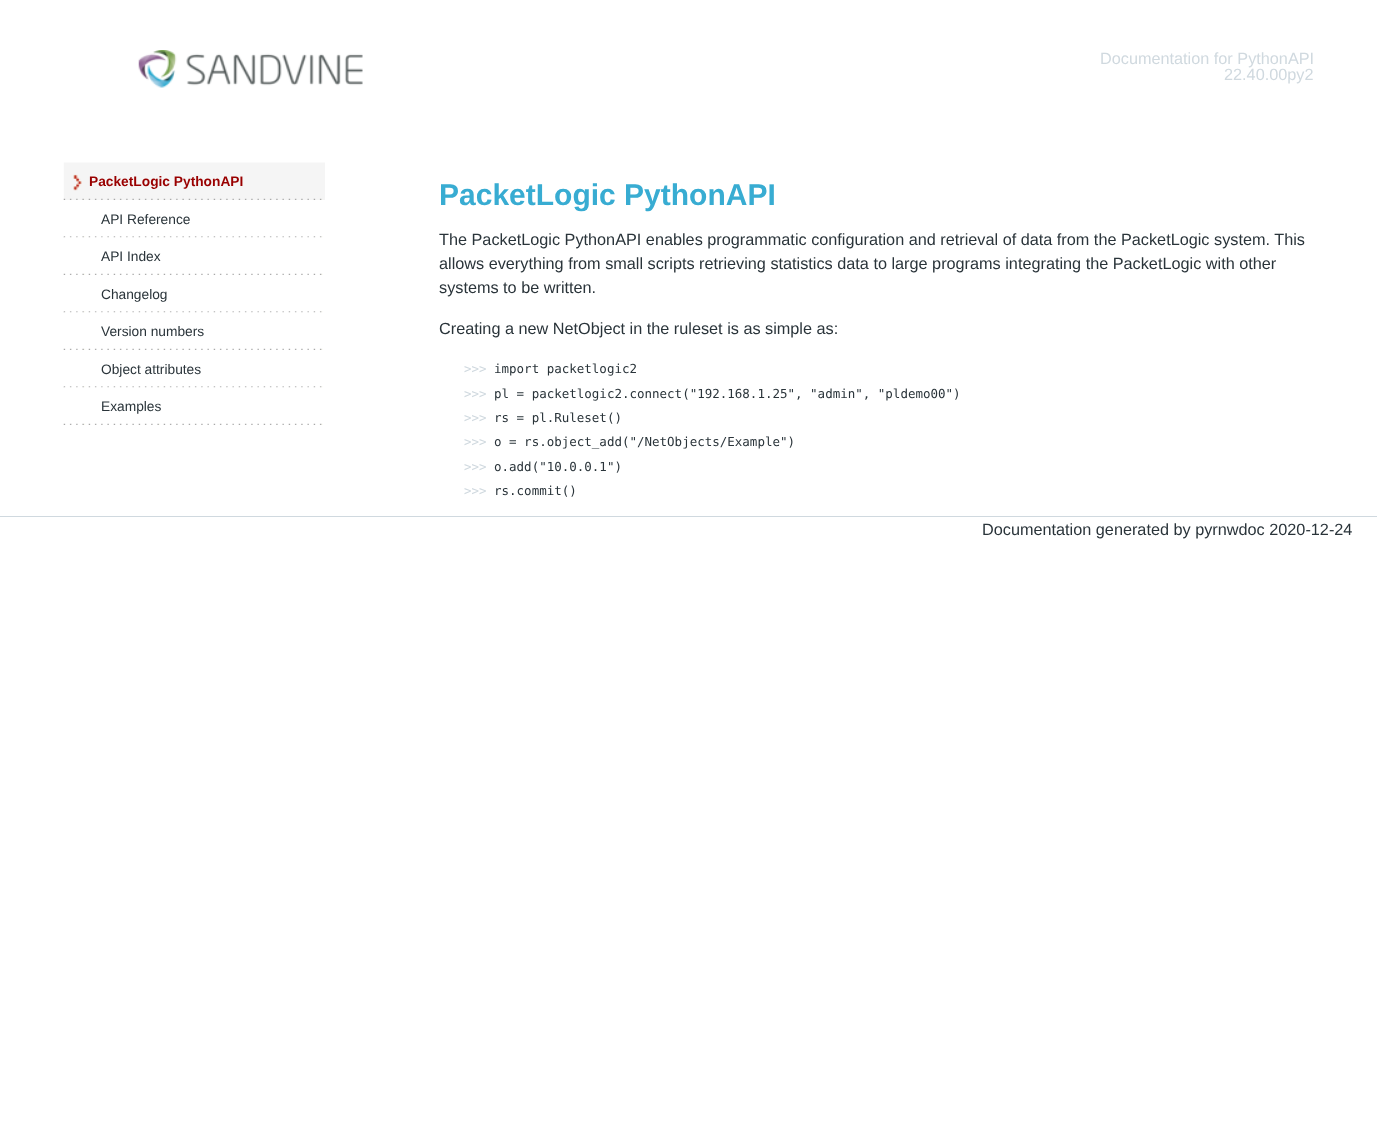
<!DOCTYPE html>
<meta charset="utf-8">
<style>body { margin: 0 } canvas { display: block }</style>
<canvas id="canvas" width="1377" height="1123"></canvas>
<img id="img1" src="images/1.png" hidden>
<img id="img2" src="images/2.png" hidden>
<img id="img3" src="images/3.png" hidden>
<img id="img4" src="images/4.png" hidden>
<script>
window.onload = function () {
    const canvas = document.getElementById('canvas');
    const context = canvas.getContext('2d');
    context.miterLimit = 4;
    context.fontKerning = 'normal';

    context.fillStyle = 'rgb(255, 255, 255)';
    context.fillRect(0, 0, 1377, 1123);
    context.drawImage(document.getElementById('img1'), 138, 50, 225, 38);
    context.drawImage(document.getElementById('img2'), 63, 162, 262, 38);
    context.drawImage(document.getElementById('img3'), 63, 236, 260, 2);
    context.drawImage(document.getElementById('img4'), 63, 237, 260, 38);
    context.drawImage(document.getElementById('img3'), 63, 311, 260, 2);
    context.drawImage(document.getElementById('img4'), 63, 312, 260, 38);
    context.drawImage(document.getElementById('img3'), 63, 386, 260, 2);
    context.drawImage(document.getElementById('img4'), 63, 387, 260, 38);
    context.fillStyle = 'rgb(208, 217, 223)';
    context.fillRect(0, 516, 1377, 1);
    context.font = '16.25px Liberation Sans';
    context.fillText('Documentation for PythonAPI', 1100, 64);
    context.fillText('22.40.00py2', 1224, 80);
    context.font = 'bold 13.75px Liberation Sans';
    context.fillStyle = 'rgb(153, 0, 0)';
    context.fillText('PacketLogic PythonAPI', 89, 186);
    context.font = '13.75px Liberation Sans';
    context.fillStyle = 'rgb(42, 52, 58)';
    context.fillText('API Reference', 101, 224);
    context.fillText('API Index', 101, 261);
    context.fillText('Changelog', 101, 299);
    context.fillText('Version numbers', 101, 336);
    context.fillText('Object attributes', 101, 374);
    context.fillText('Examples', 101, 411);
    context.font = 'bold 30px Liberation Sans';
    context.fillStyle = 'rgb(56, 172, 210)';
    context.fillText('PacketLogic PythonAPI', 439, 205);
    context.font = '16.25px Liberation Sans';
    context.fillStyle = 'rgb(42, 52, 58)';
    context.fillText('The PacketLogic PythonAPI enables programmatic configuration and retrieval of data from the PacketLogic system. This', 439, 245);
    context.fillText('allows everything from small scripts retrieving statistics data to large programs integrating the PacketLogic with other', 439, 269);
    context.fillText('systems to be written.', 439, 293);
    context.fillText('Creating a new NetObject in the ruleset is as simple as:', 439, 334);
    context.font = '12.5px DejaVu Sans Mono';
    context.fillStyle = 'rgb(208, 217, 223)';
    context.fillText('>>>', 464, 373);
    context.fillStyle = 'rgb(42, 52, 58)';
    context.fillText('import packetlogic2', 494, 373);
    context.fillStyle = 'rgb(208, 217, 223)';
    context.fillText('>>>', 464, 398);
    context.fillStyle = 'rgb(42, 52, 58)';
    context.fillText('pl = packetlogic2.connect("192.168.1.25", "admin", "pldemo00")', 494, 398);
    context.fillStyle = 'rgb(208, 217, 223)';
    context.fillText('>>>', 464, 422);
    context.fillStyle = 'rgb(42, 52, 58)';
    context.fillText('rs = pl.Ruleset()', 494, 422);
    context.fillStyle = 'rgb(208, 217, 223)';
    context.fillText('>>>', 464, 446);
    context.fillStyle = 'rgb(42, 52, 58)';
    context.fillText('o = rs.object_add("/NetObjects/Example")', 494, 446);
    context.fillStyle = 'rgb(208, 217, 223)';
    context.fillText('>>>', 464, 471);
    context.fillStyle = 'rgb(42, 52, 58)';
    context.fillText('o.add("10.0.0.1")', 494, 471);
    context.fillStyle = 'rgb(208, 217, 223)';
    context.fillText('>>>', 464, 495);
    context.fillStyle = 'rgb(42, 52, 58)';
    context.fillText('rs.commit()', 494, 495);
    context.font = '16.25px Liberation Sans';
    context.fillText('Documentation generated by pyrnwdoc 2020-12-24', 982, 535);
};
</script>
